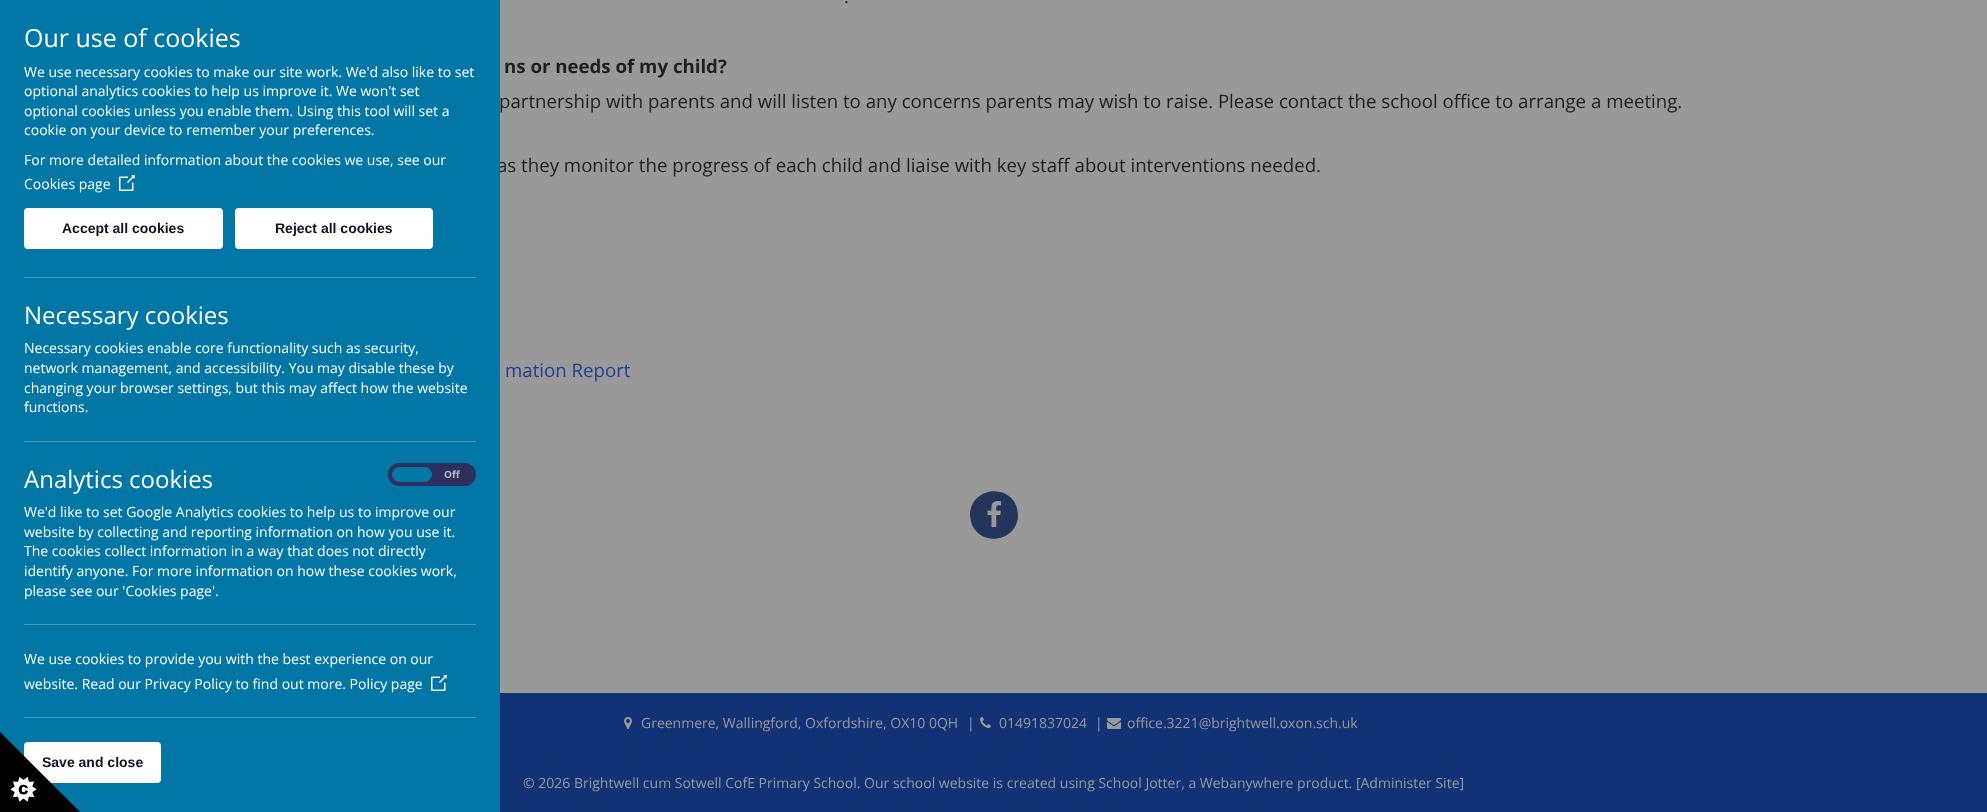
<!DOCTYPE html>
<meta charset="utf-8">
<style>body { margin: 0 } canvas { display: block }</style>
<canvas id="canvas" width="1987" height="812"></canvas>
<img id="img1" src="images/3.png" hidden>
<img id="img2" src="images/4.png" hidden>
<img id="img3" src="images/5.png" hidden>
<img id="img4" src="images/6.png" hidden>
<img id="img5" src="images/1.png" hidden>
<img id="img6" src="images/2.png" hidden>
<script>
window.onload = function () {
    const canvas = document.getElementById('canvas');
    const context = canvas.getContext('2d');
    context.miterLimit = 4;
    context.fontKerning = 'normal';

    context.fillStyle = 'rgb(153, 153, 153)';
    context.fillRect(0, 0, 1987, 812);
    context.fillStyle = 'rgb(35, 53, 91)';
    context.beginPath();
    context.moveTo(1015, 503);
    context.bezierCurveTo(1017, 507, 1018, 512, 1018, 517);
    context.bezierCurveTo(1016, 540, 985, 547, 973, 527);
    context.bezierCurveTo(971, 523, 970, 518, 970, 513);
    context.bezierCurveTo(972, 490, 1003, 483, 1015, 503);
    context.closePath();
    context.fill();
    context.drawImage(document.getElementById('img1'), 987, 501, 14, 26);
    context.fillStyle = 'rgb(17, 50, 117)';
    context.fillRect(500, 693, 1487, 119);
    context.drawImage(document.getElementById('img2'), 624, 717, 8, 12);
    context.drawImage(document.getElementById('img3'), 980, 717, 11, 11);
    context.drawImage(document.getElementById('img4'), 1107, 718, 14, 11);
    context.font = '18.67px Open Sans';
    context.fillStyle = 'rgb(31, 31, 31)';
    context.fillText('.', 844, 3);
    context.font = 'bold 18.67px Open Sans';
    context.fillText('ns or needs of my child?', 504, 73);
    context.font = '18.67px Open Sans';
    context.fillText('partnership with parents and will listen to any concerns parents may wish to raise. Please contact the school office to arrange a meeting.', 499, 108);
    context.fillText('as they monitor the progress of each child and liaise with key staff about interventions needed.', 497, 172);
    context.fillStyle = 'rgb(31, 61, 153)';
    context.fillText('mation Report', 505, 377);
    context.fillStyle = 'rgb(2, 118, 165)';
    context.fillRect(0, 0, 500, 812);
    context.font = '25px Open Sans';
    context.fillStyle = 'rgb(255, 255, 255)';
    context.fillText('Our use of cookies', 24, 47);
    context.font = '14px Open Sans';
    context.fillText('We use necessary cookies to make our site work. We\'d also like to set', 24, 77);
    context.fillText('optional analytics cookies to help us improve it. We won\'t set', 24, 96);
    context.fillText('optional cookies unless you enable them. Using this tool will set a', 24, 116);
    context.fillText('cookie on your device to remember your preferences.', 24, 135);
    context.fillText('For more detailed information about the cookies we use, see our', 24, 165);
    context.fillText('Cookies page', 24, 189);
    context.drawImage(document.getElementById('img5'), 119, 175, 16, 16);
    context.beginPath();
    context.roundRect(25, 209, 197, 39, 3);
    context.fill();
    context.strokeStyle = 'rgb(255, 255, 255)';
    context.lineWidth = 2;
    context.stroke();
    context.font = 'bold 14px Liberation Sans';
    context.fillStyle = 'rgb(17, 17, 37)';
    context.fillText('Accept all cookies', 62, 233);
    context.fillStyle = 'rgb(255, 255, 255)';
    context.beginPath();
    context.roundRect(236, 209, 196, 39, 3);
    context.fill();
    context.stroke();
    context.fillStyle = 'rgb(17, 17, 37)';
    context.fillText('Reject all cookies', 275, 233);
    context.fillStyle = 'rgb(65, 152, 188)';
    context.fillRect(24, 277, 452, 1);
    context.font = '24px Open Sans';
    context.fillStyle = 'rgb(255, 255, 255)';
    context.fillText('Necessary cookies', 24, 324);
    context.font = '14px Open Sans';
    context.fillText('Necessary cookies enable core functionality such as security,', 24, 353);
    context.fillText('network management, and accessibility. You may disable these by', 24, 373);
    context.fillText('changing your browser settings, but this may affect how the website', 24, 393);
    context.fillText('functions.', 24, 412);
    context.fillStyle = 'rgb(65, 152, 188)';
    context.fillRect(24, 441, 452, 1);
    context.font = '24px Open Sans';
    context.fillStyle = 'rgb(255, 255, 255)';
    context.fillText('Analytics cookies', 24, 488);
    context.fillStyle = 'rgb(47, 47, 95)';
    context.beginPath();
    context.roundRect(390, 465, 84, 19, 9.5);
    context.fill();
    context.strokeStyle = 'rgb(47, 47, 95)';
    context.lineWidth = 4;
    context.stroke();
    context.fillStyle = 'rgb(2, 118, 165)';
    context.beginPath();
    context.roundRect(392, 467, 40, 15, 7.5);
    context.fill();
    context.font = 'bold 10px Open Sans';
    context.fillStyle = 'rgb(182, 182, 199)';
    context.fillText('Off', 444, 478);
    context.font = '14px Open Sans';
    context.fillStyle = 'rgb(255, 255, 255)';
    context.fillText('We\'d like to set Google Analytics cookies to help us to improve our', 24, 517);
    context.fillText('website by collecting and reporting information on how you use it.', 24, 537);
    context.fillText('The cookies collect information in a way that does not directly', 24, 556);
    context.fillText('identify anyone. For more information on how these cookies work,', 24, 576);
    context.fillText('please see our \'Cookies page\'.', 24, 596);
    context.fillStyle = 'rgb(65, 152, 188)';
    context.fillRect(24, 624, 452, 1);
    context.fillStyle = 'rgb(255, 255, 255)';
    context.fillText('We use cookies to provide you with the best experience on our', 24, 664);
    context.fillText('website. Read our Privacy Policy to find out more. Policy page', 24, 689);
    context.drawImage(document.getElementById('img5'), 431, 675, 16, 16);
    context.fillStyle = 'rgb(65, 152, 188)';
    context.fillRect(24, 717, 452, 1);
    context.fillStyle = 'rgb(255, 255, 255)';
    context.beginPath();
    context.roundRect(25, 743, 135, 39, 3);
    context.fill();
    context.strokeStyle = 'rgb(255, 255, 255)';
    context.lineWidth = 2;
    context.stroke();
    context.font = 'bold 14px Liberation Sans';
    context.fillStyle = 'rgb(17, 17, 37)';
    context.fillText('Save and close', 42, 767);
    context.drawImage(document.getElementById('img6'), 0, 732, 80, 80);
    context.font = '14px Open Sans';
    context.fillStyle = 'rgb(153, 153, 153)';
    context.fillText('© 2026 Brightwell cum Sotwell CofE Primary School. Our school website is created using School Jotter, a Webanywhere product. [Administer Site]', 523, 788);
    context.fillText('Greenmere, Wallingford, Oxfordshire, OX10 0QH', 641, 728);
    context.fillText('|', 967, 728);
    context.fillText('01491837024', 999, 728);
    context.fillText('|', 1095, 728);
    context.fillText('office.3221@brightwell.oxon.sch.uk', 1127, 728);
};
</script>
